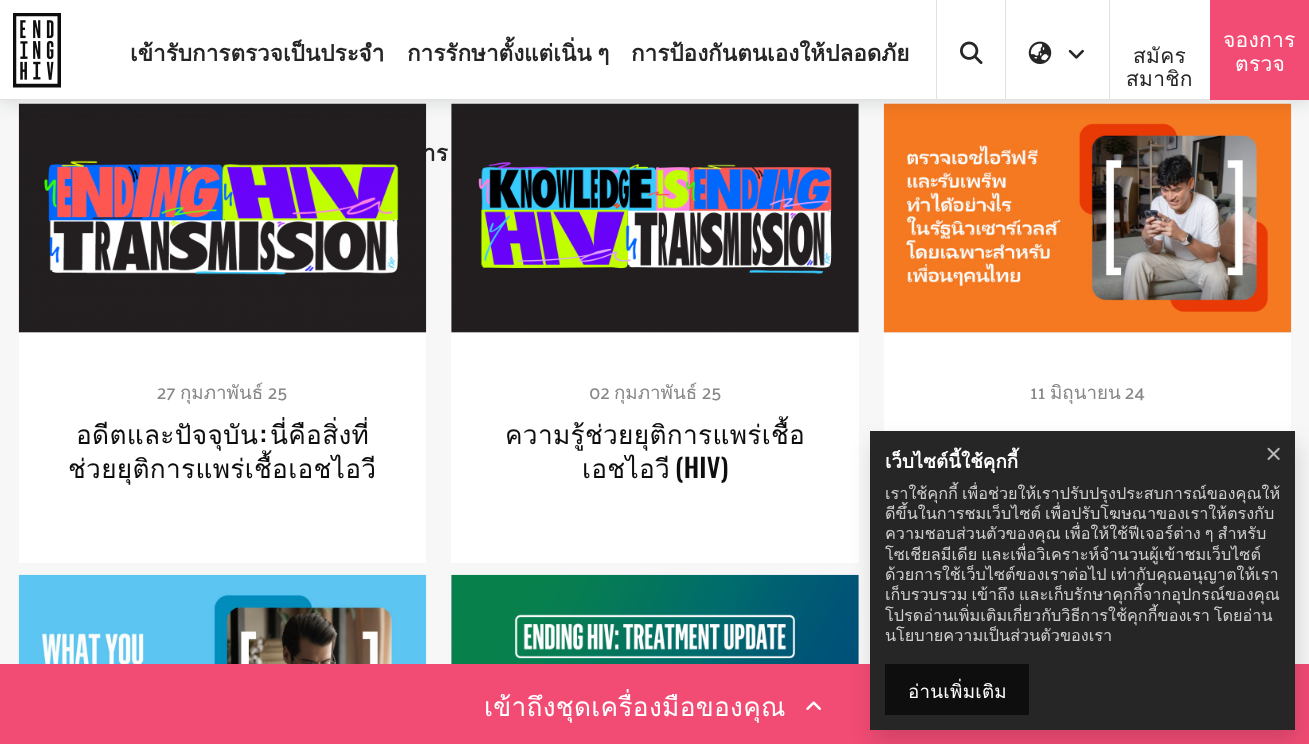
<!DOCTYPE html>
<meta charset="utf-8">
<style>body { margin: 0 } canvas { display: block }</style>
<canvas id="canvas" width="1309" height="744"></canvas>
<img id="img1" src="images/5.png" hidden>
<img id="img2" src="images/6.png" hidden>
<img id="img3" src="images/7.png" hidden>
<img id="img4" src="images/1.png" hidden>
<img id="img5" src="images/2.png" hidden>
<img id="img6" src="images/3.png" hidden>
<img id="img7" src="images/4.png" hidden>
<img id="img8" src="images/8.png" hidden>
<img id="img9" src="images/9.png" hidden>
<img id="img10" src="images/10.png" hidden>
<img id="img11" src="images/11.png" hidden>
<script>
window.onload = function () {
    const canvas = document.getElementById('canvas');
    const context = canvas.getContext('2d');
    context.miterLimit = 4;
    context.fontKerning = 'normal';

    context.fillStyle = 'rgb(247, 247, 247)';
    context.fillRect(0, 0, 1309, 744);
    context.fillStyle = 'rgb(236, 236, 236)';
    context.fillRect(19, 332, 407, 1);
    context.drawImage(document.getElementById('img1'), 18, 103, 409, 230);
    context.fillRect(451, 104, 408, 229);
    context.drawImage(document.getElementById('img2'), 451, 103, 408, 230);
    context.fillRect(884, 332, 407, 1);
    context.drawImage(document.getElementById('img3'), 883, 103, 409, 230);
    context.fillStyle = 'rgba(5, 28, 40, 0.1)';
    context.filter = 'blur(7.5px)';
    context.beginPath();
    context.rect(0, 5, 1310, 100);
    context.fill();
    context.filter = 'none';
    context.fillStyle = 'rgb(255, 255, 255)';
    context.fillRect(0, 0, 1210, 99);
    context.fillStyle = 'rgb(225, 225, 225)';
    context.fillRect(0, 99, 1210, 1);
    context.drawImage(document.getElementById('img4'), 13, 13, 48, 75);
    context.fillRect(936, 0, 1, 100);
    context.drawImage(document.getElementById('img5'), 960, 41, 23, 23);
    context.fillRect(1005, 0, 1, 100);
    context.drawImage(document.getElementById('img6'), 1028, 41, 24, 23);
    context.drawImage(document.getElementById('img7'), 1068, 49, 16, 10);
    context.fillRect(1109, 0, 1, 100);
    context.fillStyle = 'rgb(242, 75, 116)';
    context.fillRect(1210, 0, 99, 100);
    context.fillStyle = 'rgb(255, 255, 255)';
    context.fillRect(19, 333, 407, 230);
    context.fillRect(451, 333, 408, 230);
    context.fillRect(884, 333, 407, 98);
    context.drawImage(document.getElementById('img8'), 18, 574, 409, 90);
    context.fillStyle = 'rgb(236, 236, 236)';
    context.fillRect(451, 575, 408, 89);
    context.drawImage(document.getElementById('img9'), 451, 574, 408, 90);
    context.fillStyle = 'rgb(242, 75, 116)';
    context.fillRect(0, 664, 1309, 80);
    context.fillStyle = 'rgba(15, 14, 14, 0.15)';
    context.filter = 'blur(11px)';
    context.beginPath();
    context.rect(873, 443, 425, 298);
    context.fill();
    context.filter = 'none';
    context.fillStyle = 'rgb(39, 38, 38)';
    context.fillRect(870, 431, 425, 299);
    context.drawImage(document.getElementById('img10'), 1267, 447, 13, 13);
    context.fillStyle = 'rgb(15, 14, 14)';
    context.fillRect(885, 664, 144, 51);
    context.drawImage(document.getElementById('img11'), 806, 701, 15, 9);
    context.font = 'bold 22.5px Loma';
    context.fillStyle = 'rgb(39, 38, 38)';
    context.fillText('เข้ารับการตรวจเป็นประจำ', 130, 61);
    context.wordSpacing = '-2px';
    context.fillText('การรักษาตั้งแต่เนิ่น ๆ', 407, 61);
    context.wordSpacing = '0px';
    context.fillText('การป้องกันตนเองให้ปลอดภัย', 631, 61);
    context.fillText('าร', 423, 161);
    context.letterSpacing = '0.25px';
    context.font = '21px Loma';
    context.fillText('สมัคร', 1133, 63);
    context.fillText('สมาชิก', 1126, 86);
    context.fillStyle = 'rgb(255, 255, 255)';
    context.fillText('จองการ', 1223, 47);
    context.fillText('ตรวจ', 1235, 71);
    context.letterSpacing = '0px';
    context.font = '500 18.75px Palanquin';
    context.fillStyle = 'rgb(135, 135, 135)';
    context.fillText('27', 157, 399);
    context.font = '18.75px Loma';
    context.fillText('กุมภาพันธ์', 180, 399);
    context.font = '500 18.75px Palanquin';
    context.fillText('25', 268, 399);
    context.letterSpacing = '0.3px';
    context.font = '26.25px Loma';
    context.fillStyle = 'rgb(15, 14, 14)';
    context.fillText('อดีตและปัจจุบัน', 76, 444);
    context.font = '500 26.25px Oswald';
    context.fillText(':', 260, 444);
    context.font = '26.25px Loma';
    context.fillText('นี่คือสิ่งที่', 270, 444);
    context.fillText('ช่วยยุติการแพร่เชื้อเอชไอวี', 68, 478);
    context.letterSpacing = '0px';
    context.font = '500 18.75px Palanquin';
    context.fillStyle = 'rgb(135, 135, 135)';
    context.fillText('02', 589, 399);
    context.font = '18.75px Loma';
    context.fillText('กุมภาพันธ์', 614, 399);
    context.font = '500 18.75px Palanquin';
    context.fillText('25', 702, 399);
    context.letterSpacing = '0.3px';
    context.font = '26.25px Loma';
    context.fillStyle = 'rgb(15, 14, 14)';
    context.fillText('ความรู้ช่วยยุติการแพร่เชื้อ', 505, 444);
    context.fillText('เอชไอวี', 582, 478);
    context.font = '500 26.25px Oswald';
    context.fillText('(HIV)', 675, 478);
    context.letterSpacing = '0px';
    context.font = '500 18.75px Palanquin';
    context.fillStyle = 'rgb(135, 135, 135)';
    context.fillText('11', 1030, 399);
    context.font = '18.75px Loma';
    context.fillText('มิถุนายน', 1050, 399);
    context.font = '500 18.75px Palanquin';
    context.fillText('24', 1125, 399);
    context.font = 'bold 18.75px Loma';
    context.fillStyle = 'rgb(255, 255, 255)';
    context.fillText('เว็บไซต์นี้ใช้คุกกี้', 885, 468);
    context.wordSpacing = '-1.5px';
    context.font = '16.25px Loma';
    context.fillStyle = 'rgb(207, 207, 207)';
    context.fillText('เราใช้คุกกี้ เพื่อช่วยให้เราปรับปรุงประสบการณ์ของคุณให้', 885, 499);
    context.fillText('ดีขึ้นในการชมเว็บไซต์ เพื่อปรับโฆษณาของเราให้ตรงกับ', 885, 519);
    context.fillText('ความชอบส่วนตัวของคุณ เพื่อให้ใช้ฟีเจอร์ต่าง ๆ สำหรับ', 885, 539);
    context.fillText('โซเชียลมีเดีย และเพื่อวิเคราะห์จำนวนผู้เข้าชมเว็บไซต์', 885, 560);
    context.fillText('ด้วยการใช้เว็บไซต์ของเราต่อไป เท่ากับคุณอนุญาตให้เรา', 885, 580);
    context.fillText('เก็บรวบรวม เข้าถึง และเก็บรักษาคุกกี้จากอุปกรณ์ของคุณ', 885, 600);
    context.fillText('โปรดอ่านเพิ่มเติมเกี่ยวกับวิธีการใช้คุกกี้ของเรา โดยอ่าน', 885, 621);
    context.wordSpacing = '0px';
    context.fillText('นโยบายความเป็นส่วนตัวของเรา', 885, 641);
    context.letterSpacing = '0.25px';
    context.font = '18.75px Loma';
    context.fillStyle = 'rgb(255, 255, 255)';
    context.fillText('อ่านเพิ่มเติม', 908, 698);
    context.letterSpacing = '0.3px';
    context.font = '26.25px Loma';
    context.fillText('เข้าถึงชุดเครื่องมือของคุณ', 484, 716);
};
</script>
